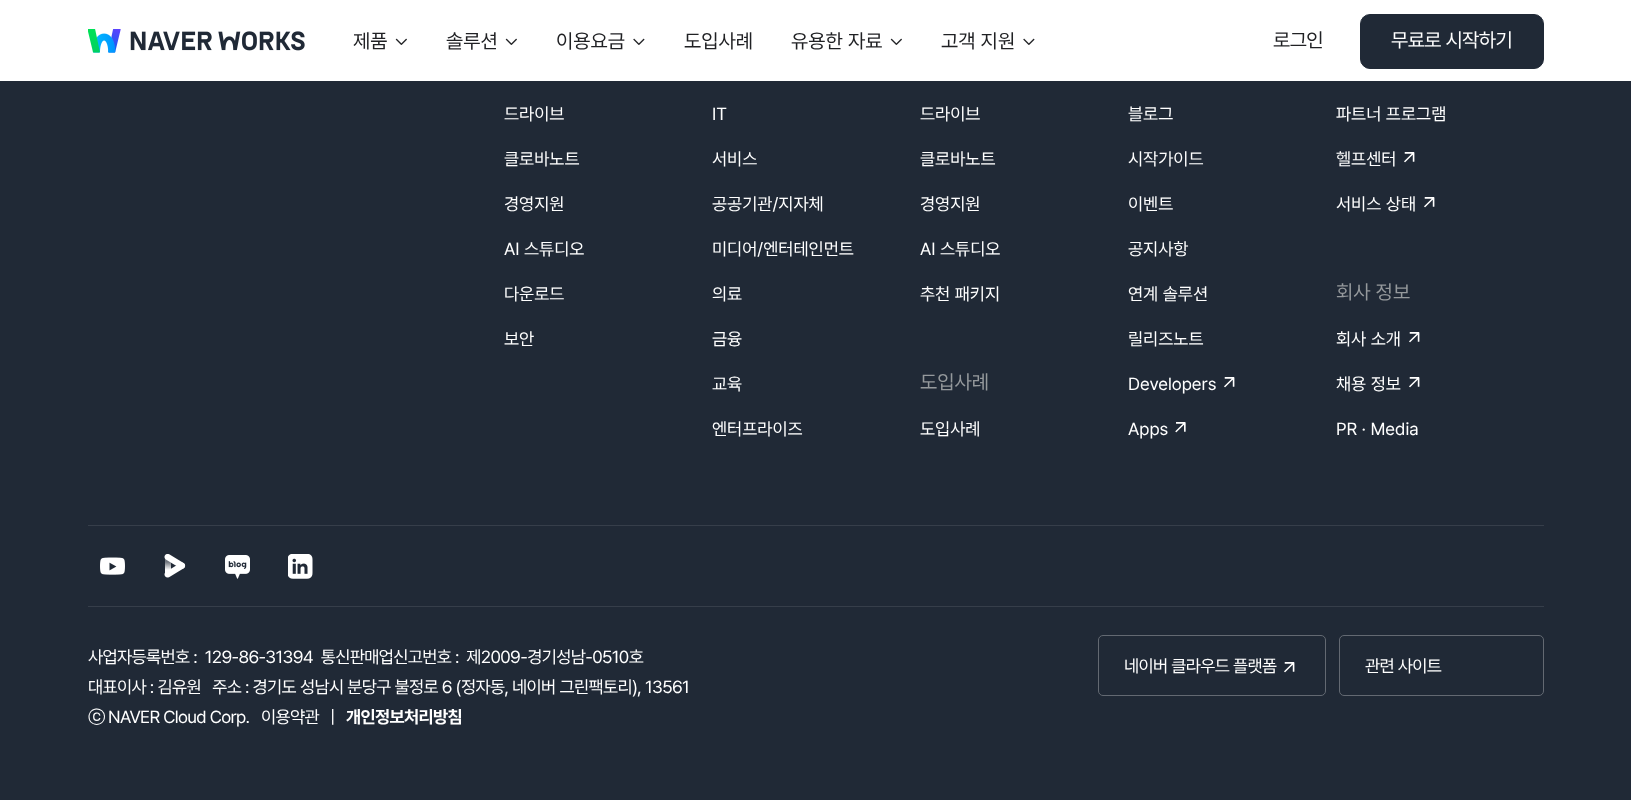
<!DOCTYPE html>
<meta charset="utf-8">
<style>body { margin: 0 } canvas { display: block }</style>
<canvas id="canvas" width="1650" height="800"></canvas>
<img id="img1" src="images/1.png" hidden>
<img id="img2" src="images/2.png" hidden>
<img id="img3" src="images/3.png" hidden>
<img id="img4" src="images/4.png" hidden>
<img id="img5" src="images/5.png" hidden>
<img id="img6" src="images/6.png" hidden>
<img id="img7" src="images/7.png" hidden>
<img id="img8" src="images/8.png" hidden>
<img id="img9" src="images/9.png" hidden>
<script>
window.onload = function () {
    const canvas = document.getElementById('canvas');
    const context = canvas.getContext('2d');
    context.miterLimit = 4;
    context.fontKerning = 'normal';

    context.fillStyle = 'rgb(255, 255, 255)';
    context.fillRect(0, 0, 1650, 800);
    context.drawImage(document.getElementById('img1'), 88, 29, 217, 24);
    context.drawImage(document.getElementById('img2'), 395, 38, 12, 7);
    context.drawImage(document.getElementById('img2'), 505, 38, 12, 7);
    context.drawImage(document.getElementById('img3'), 633, 38, 12, 7);
    context.drawImage(document.getElementById('img2'), 890, 38, 12, 7);
    context.drawImage(document.getElementById('img3'), 1023, 38, 12, 7);
    context.fillStyle = 'rgb(32, 41, 54)';
    context.beginPath();
    context.roundRect(1360.5, 14.5, 183, 54, 9.5);
    context.fill();
    context.strokeStyle = 'rgb(32, 41, 54)';
    context.stroke();
    context.fillRect(0, 81, 1631, 719);
    context.drawImage(document.getElementById('img4'), 1224, 377, 11, 11);
    context.drawImage(document.getElementById('img5'), 1175, 422, 11, 11);
    context.drawImage(document.getElementById('img4'), 1404, 152, 11, 11);
    context.drawImage(document.getElementById('img4'), 1424, 197, 11, 11);
    context.drawImage(document.getElementById('img4'), 1409, 332, 11, 11);
    context.drawImage(document.getElementById('img4'), 1409, 377, 11, 11);
    context.fillStyle = 'rgb(54, 62, 74)';
    context.fillRect(88, 525, 1456, 1);
    context.drawImage(document.getElementById('img6'), 100, 557, 25, 18);
    context.drawImage(document.getElementById('img7'), 164, 554, 22, 24);
    context.drawImage(document.getElementById('img8'), 225, 555, 25, 24);
    context.drawImage(document.getElementById('img9'), 288, 554, 25, 25);
    context.fillRect(88, 606, 1456, 1);
    context.beginPath();
    context.roundRect(1098.5, 635.5, 227, 60, 4.5);
    context.strokeStyle = 'rgb(99, 105, 114)';
    context.stroke();
    context.drawImage(document.getElementById('img4'), 1284, 662, 11, 11);
    context.beginPath();
    context.roundRect(1339.5, 635.5, 204, 60, 4.5);
    context.stroke();
    context.font = '20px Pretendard';
    context.fillStyle = 'rgb(32, 33, 36)';
    context.fillText('제품', 353, 48);
    context.fillText('솔루션', 446, 48);
    context.fillText('이용요금', 556, 48);
    context.fillText('도입사례', 684, 48);
    context.fillText('유용한 자료', 791, 48);
    context.fillText('고객 지원', 941, 48);
    context.letterSpacing = '-0.62px';
    context.fillText('로그인', 1273, 47);
    context.fillStyle = 'rgb(255, 255, 255)';
    context.fillText('무료로 시작하기', 1391, 47);
    context.letterSpacing = '0px';
    context.font = '17.5px Pretendard';
    context.fillText('드라이브', 504, 120);
    context.fillText('클로바노트', 504, 165);
    context.fillText('경영지원', 504, 210);
    context.fillText('AI 스튜디오', 504, 255);
    context.fillText('다운로드', 504, 300);
    context.fillText('보안', 504, 345);
    context.fillText('IT', 712, 120);
    context.fillText('서비스', 712, 165);
    context.fillText('공공기관/지자체', 712, 210);
    context.fillText('미디어/엔터테인먼트', 712, 255);
    context.fillText('의료', 712, 300);
    context.fillText('금융', 712, 345);
    context.fillText('교육', 712, 390);
    context.fillText('엔터프라이즈', 712, 435);
    context.fillText('드라이브', 920, 120);
    context.fillText('클로바노트', 920, 165);
    context.fillText('경영지원', 920, 210);
    context.fillText('AI 스튜디오', 920, 255);
    context.fillText('추천 패키지', 920, 300);
    context.font = '20px Pretendard';
    context.fillStyle = 'rgb(149, 153, 156)';
    context.fillText('도입사례', 920, 389);
    context.font = '17.5px Pretendard';
    context.fillStyle = 'rgb(255, 255, 255)';
    context.fillText('도입사례', 920, 435);
    context.fillText('블로그', 1128, 120);
    context.fillText('시작가이드', 1128, 165);
    context.fillText('이벤트', 1128, 210);
    context.fillText('공지사항', 1128, 255);
    context.fillText('연계 솔루션', 1128, 300);
    context.fillText('릴리즈노트', 1128, 345);
    context.fillText('Developers', 1128, 390);
    context.fillText('Apps', 1128, 435);
    context.fillText('파트너 프로그램', 1336, 120);
    context.fillText('헬프센터', 1336, 165);
    context.fillText('서비스 상태', 1336, 210);
    context.font = '20px Pretendard';
    context.fillStyle = 'rgb(149, 153, 156)';
    context.fillText('회사 정보', 1336, 299);
    context.font = '17.5px Pretendard';
    context.fillStyle = 'rgb(255, 255, 255)';
    context.fillText('회사 소개', 1336, 345);
    context.fillText('채용 정보', 1336, 390);
    context.fillText('PR · Media', 1336, 435);
    context.letterSpacing = '-0.62px';
    context.fillText('사업자등록번호 :  129-86-31394  통신판매업신고번호 :  제2009-경기성남-0510호', 88, 663);
    context.fillText('대표이사 : 김유원   주소 : 경기도 성남시 분당구 불정로 6 (정자동, 네이버 그린팩토리), 13561', 88, 693);
    context.font = '500 17.5px WenQuanYi Zen Hei';
    context.fillText('ⓒ', 88, 723);
    context.font = '17.5px Pretendard';
    context.fillText('NAVER Cloud Corp.', 108, 723);
    context.fillText('이용약관', 261, 723);
    context.fillText('|', 330, 723);
    context.font = 'bold 17.5px Pretendard';
    context.fillText('개인정보처리방침', 346, 723);
    context.font = '17.5px Pretendard';
    context.fillText('네이버 클라우드 플랫폼', 1124, 672);
    context.fillText('관련 사이트', 1365, 672);
};
</script>
